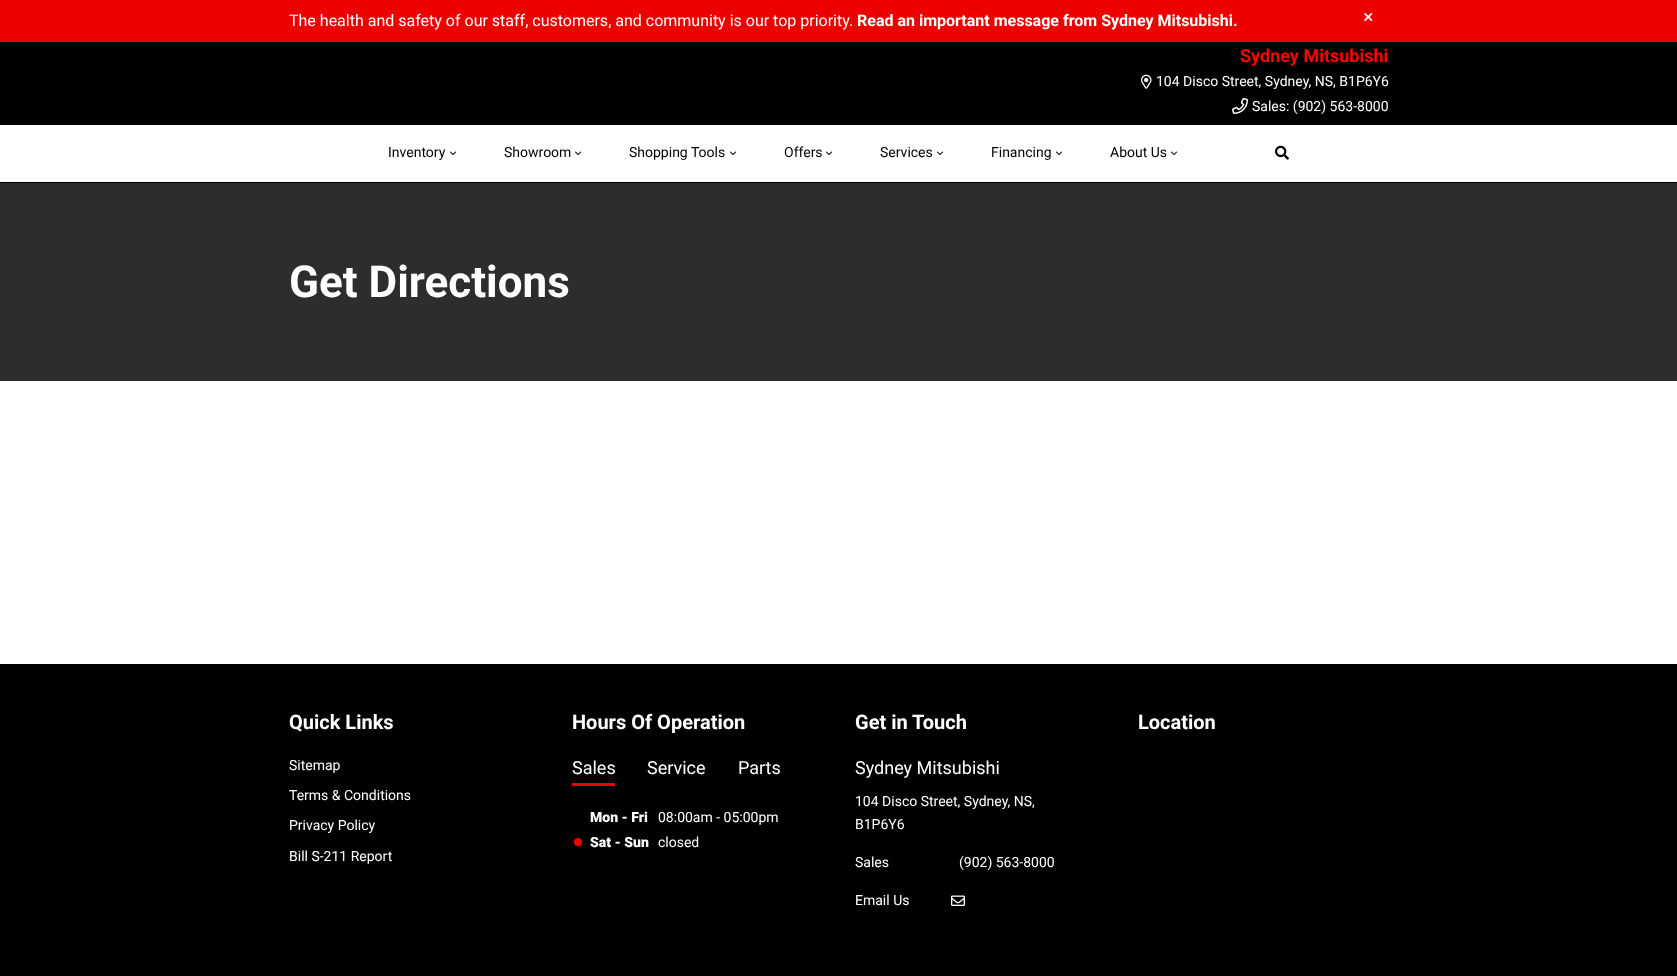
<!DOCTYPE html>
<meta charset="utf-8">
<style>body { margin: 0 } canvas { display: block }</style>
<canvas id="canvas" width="1677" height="976"></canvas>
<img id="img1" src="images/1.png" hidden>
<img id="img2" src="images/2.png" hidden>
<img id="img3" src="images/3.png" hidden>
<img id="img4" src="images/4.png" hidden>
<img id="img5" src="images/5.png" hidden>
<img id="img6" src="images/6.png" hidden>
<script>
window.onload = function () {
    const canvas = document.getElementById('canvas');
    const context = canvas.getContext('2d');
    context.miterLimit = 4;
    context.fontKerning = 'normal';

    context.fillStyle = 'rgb(255, 255, 255)';
    context.fillRect(0, 0, 1677, 976);
    context.fillStyle = 'rgb(237, 0, 0)';
    context.fillRect(0, 0, 1677, 42);
    context.drawImage(document.getElementById('img1'), 1364, 12, 9, 10);
    context.fillStyle = 'rgb(0, 0, 0)';
    context.fillRect(0, 42, 1677, 83);
    context.drawImage(document.getElementById('img2'), 1141, 74, 11, 15);
    context.drawImage(document.getElementById('img3'), 1232, 98, 16, 16);
    context.fillRect(0, 182, 1677, 1);
    context.drawImage(document.getElementById('img4'), 450, 151, 7, 5);
    context.drawImage(document.getElementById('img4'), 575, 151, 7, 5);
    context.drawImage(document.getElementById('img4'), 730, 151, 7, 5);
    context.drawImage(document.getElementById('img4'), 826, 151, 7, 5);
    context.drawImage(document.getElementById('img4'), 937, 151, 7, 5);
    context.drawImage(document.getElementById('img4'), 1056, 151, 7, 5);
    context.drawImage(document.getElementById('img4'), 1171, 151, 7, 5);
    context.drawImage(document.getElementById('img5'), 1275, 145, 14, 15);
    context.fillStyle = 'rgb(45, 45, 45)';
    context.fillRect(0, 183, 1677, 198);
    context.fillStyle = 'rgb(0, 0, 0)';
    context.fillRect(0, 664, 1677, 312);
    context.fillStyle = 'rgb(237, 0, 0)';
    context.fillRect(572, 783, 43, 3);
    context.beginPath();
    context.arc(578, 842, 4, 0, 2 * Math.PI);
    context.fill();
    context.drawImage(document.getElementById('img6'), 951, 895, 14, 11);
    context.font = '16px Roboto';
    context.fillStyle = 'rgb(255, 255, 255)';
    context.fillText('The health and safety of our staff, customers, and community is our top priority.', 289, 26);
    context.font = 'bold 16px Roboto';
    context.fillText('Read an important message from Sydney Mitsubishi.', 857, 26);
    context.font = 'bold 18px Roboto';
    context.fillStyle = 'rgb(255, 0, 0)';
    context.fillText('Sydney Mitsubishi', 1240, 62);
    context.font = '14px Roboto';
    context.fillStyle = 'rgb(255, 255, 255)';
    context.fillText('104 Disco Street, Sydney, NS, B1P6Y6', 1156, 86);
    context.fillText('Sales: (902) 563-8000', 1252, 111);
    context.fillStyle = 'rgb(0, 0, 0)';
    context.fillText('Inventory', 388, 157);
    context.fillText('Showroom', 504, 157);
    context.fillText('Shopping Tools', 629, 157);
    context.fillText('Offers', 784, 157);
    context.fillText('Services', 880, 157);
    context.fillText('Financing', 991, 157);
    context.fillText('About Us', 1110, 157);
    context.font = 'bold 44px Roboto';
    context.fillStyle = 'rgb(255, 255, 255)';
    context.fillText('Get Directions', 289, 297);
    context.font = 'bold 20px Roboto';
    context.fillText('Quick Links', 289, 729);
    context.font = '14px Roboto';
    context.fillText('Sitemap', 289, 770);
    context.fillText('Terms & Conditions', 289, 800);
    context.fillText('Privacy Policy', 289, 830);
    context.fillText('Bill S-211 Report', 289, 861);
    context.font = 'bold 20px Roboto';
    context.fillText('Hours Of Operation', 572, 729);
    context.font = '18px Roboto';
    context.fillText('Sales', 572, 774);
    context.fillText('Service', 647, 774);
    context.fillText('Parts', 738, 774);
    context.font = '900 14px Roboto';
    context.fillText('Mon - Fri', 590, 822);
    context.font = '14px Roboto';
    context.fillText('08:00am - 05:00pm', 658, 822);
    context.font = '900 14px Roboto';
    context.fillText('Sat - Sun', 590, 847);
    context.font = '14px Roboto';
    context.fillText('closed', 658, 847);
    context.font = 'bold 20px Roboto';
    context.fillText('Get in Touch', 855, 729);
    context.font = '18px Roboto';
    context.fillText('Sydney Mitsubishi', 855, 774);
    context.font = '14px Roboto';
    context.fillText('104 Disco Street, Sydney, NS,', 855, 806);
    context.fillText('B1P6Y6', 855, 829);
    context.fillText('Sales', 855, 867);
    context.fillText('(902) 563-8000', 959, 867);
    context.fillText('Email Us', 855, 905);
    context.font = 'bold 20px Roboto';
    context.fillText('Location', 1138, 729);
};
</script>
